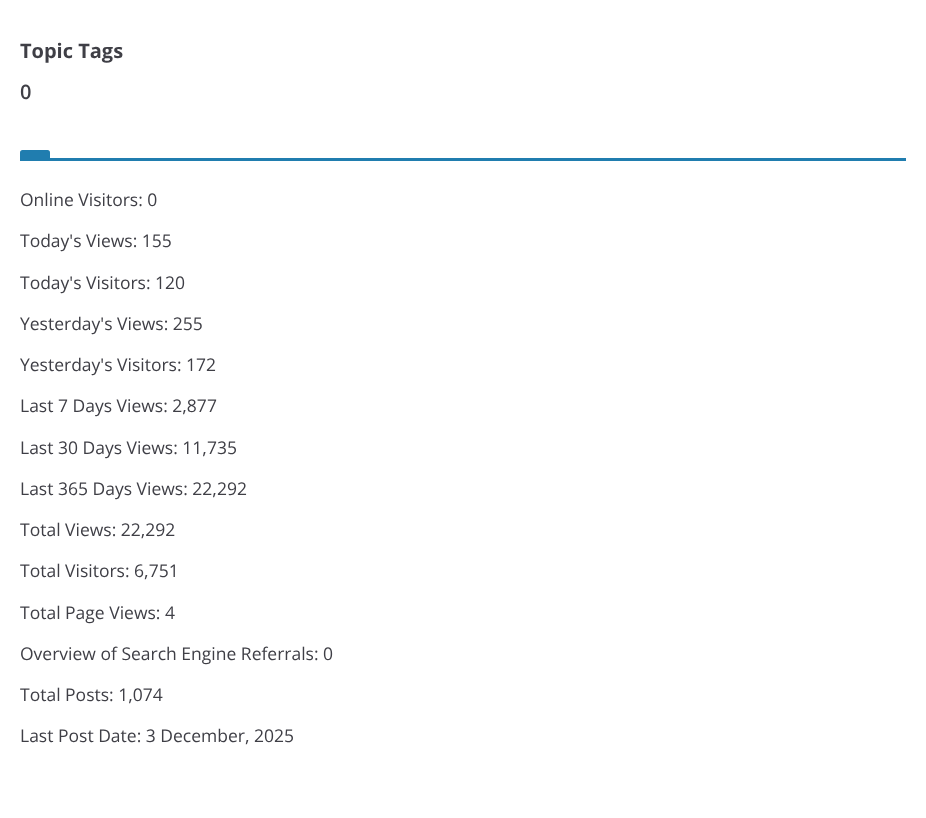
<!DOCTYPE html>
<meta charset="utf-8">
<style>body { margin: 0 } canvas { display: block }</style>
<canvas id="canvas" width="926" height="818"></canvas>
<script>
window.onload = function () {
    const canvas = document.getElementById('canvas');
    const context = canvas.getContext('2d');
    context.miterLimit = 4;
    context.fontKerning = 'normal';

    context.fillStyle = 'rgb(255, 255, 255)';
    context.fillRect(0, 0, 926, 818);
    context.fillStyle = 'rgb(32, 125, 175)';
    context.fillRect(20, 158, 886, 3);
    context.beginPath();
    context.roundRect(20, 150, 30, 8, [2.5, 2.5, 0, 0]);
    context.fill();
    context.font = 'bold 20px Open Sans';
    context.fillStyle = 'rgb(63, 63, 70)';
    context.fillText('Topic Tags', 20, 58);
    context.font = '600 20px Open Sans';
    context.fillText('0', 20, 99);
    context.font = '17.5px Open Sans';
    context.fillText('Online Visitors: 0', 20, 206);
    context.fillText('Today\'s Views: 155', 20, 247);
    context.fillText('Today\'s Visitors: 120', 20, 289);
    context.fillText('Yesterday\'s Views: 255', 20, 330);
    context.fillText('Yesterday\'s Visitors: 172', 20, 371);
    context.fillText('Last 7 Days Views: 2,877', 20, 412);
    context.fillText('Last 30 Days Views: 11,735', 20, 454);
    context.fillText('Last 365 Days Views: 22,292', 20, 495);
    context.fillText('Total Views: 22,292', 20, 536);
    context.fillText('Total Visitors: 6,751', 20, 577);
    context.fillText('Total Page Views: 4', 20, 619);
    context.fillText('Overview of Search Engine Referrals: 0', 20, 660);
    context.fillText('Total Posts: 1,074', 20, 701);
    context.fillText('Last Post Date: 3 December, 2025', 20, 742);
};
</script>
